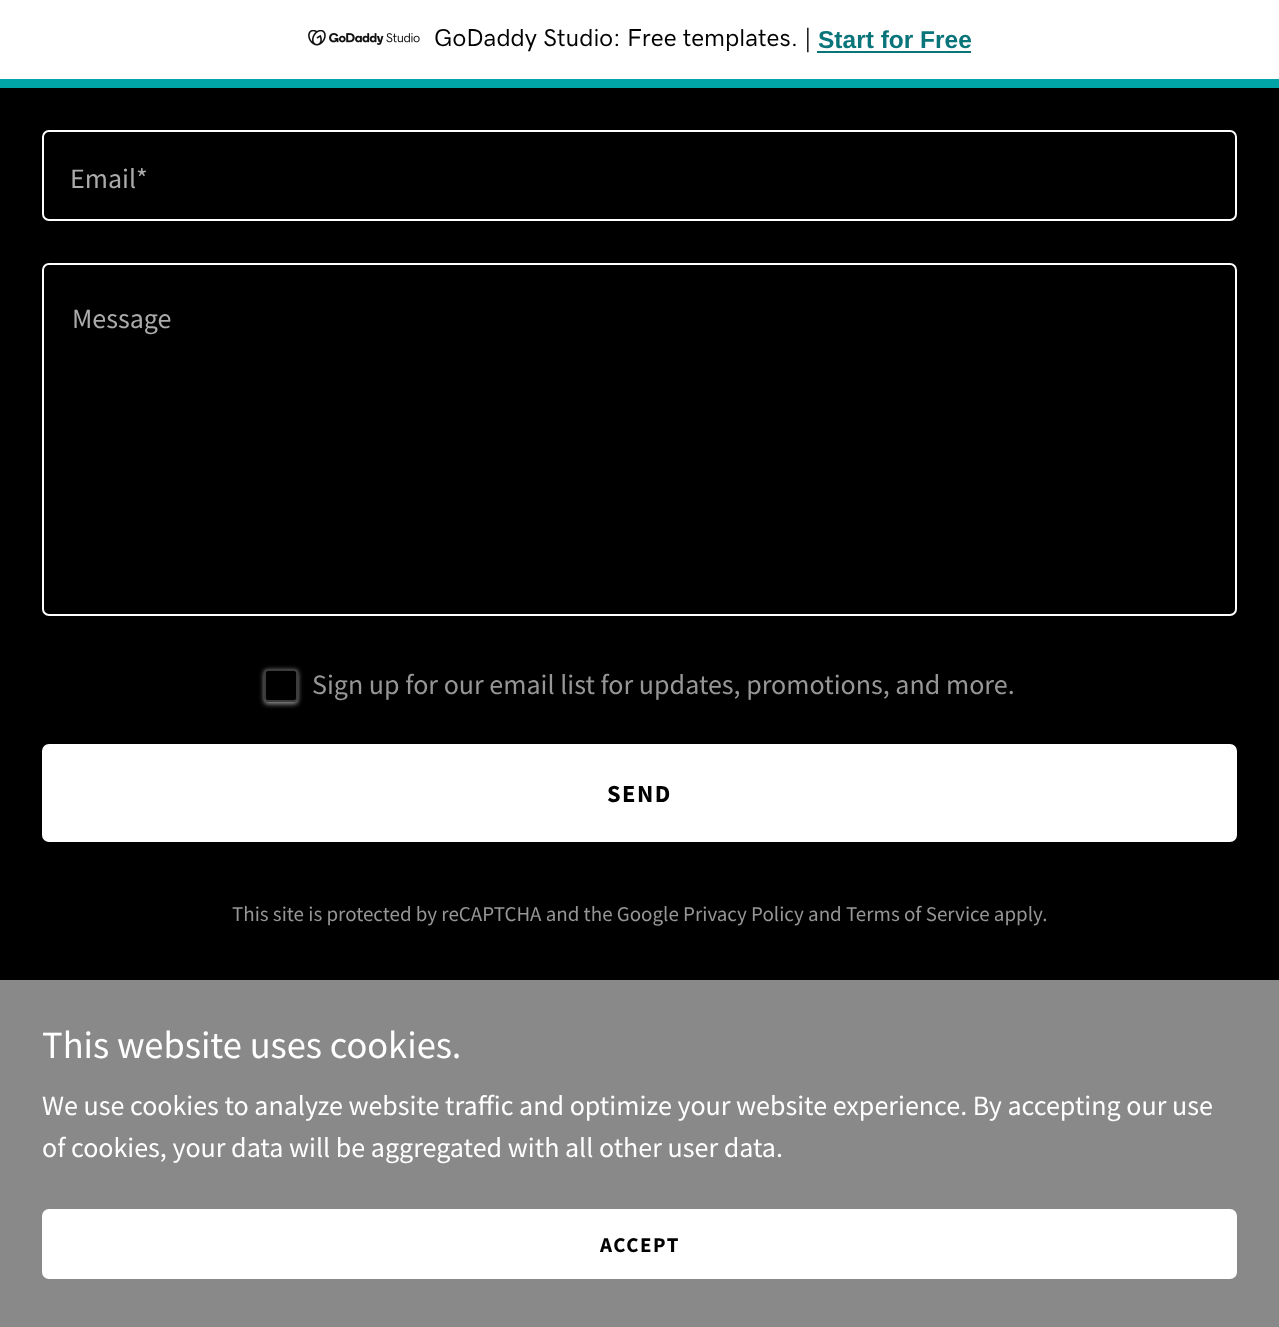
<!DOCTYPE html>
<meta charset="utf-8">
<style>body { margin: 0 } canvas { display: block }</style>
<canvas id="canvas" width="1279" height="1327"></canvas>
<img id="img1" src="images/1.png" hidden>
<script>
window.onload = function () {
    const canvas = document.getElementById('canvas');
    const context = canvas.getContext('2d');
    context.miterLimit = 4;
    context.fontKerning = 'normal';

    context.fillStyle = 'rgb(0, 0, 0)';
    context.fillRect(0, 0, 1279, 1327);
    context.fillStyle = 'rgb(255, 255, 255)';
    context.fillRect(0, 0, 1279, 79);
    context.fillStyle = 'rgb(0, 164, 166)';
    context.fillRect(0, 79, 1279, 9);
    context.drawImage(document.getElementById('img1'), 308, 30, 112, 16);
    context.fillStyle = 'rgb(9, 117, 122)';
    context.fillRect(817, 51, 154, 2);
    context.beginPath();
    context.roundRect(43, 131, 1193, 89, 6);
    context.strokeStyle = 'rgb(255, 255, 255)';
    context.lineWidth = 2;
    context.stroke();
    context.beginPath();
    context.roundRect(43, 264, 1193, 351, 6);
    context.stroke();
    context.save();
    context.beginPath();
    context.moveTo(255, 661);
    context.lineTo(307, 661);
    context.lineTo(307, 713);
    context.lineTo(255, 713);
    context.closePath();
    context.moveTo(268, 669);
    context.lineTo(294, 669);
    context.bezierCurveTo(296, 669, 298, 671, 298, 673);
    context.lineTo(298, 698);
    context.bezierCurveTo(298, 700, 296, 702, 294, 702);
    context.lineTo(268, 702);
    context.bezierCurveTo(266, 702, 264, 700, 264, 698);
    context.lineTo(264, 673);
    context.bezierCurveTo(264, 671, 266, 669, 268, 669);
    context.closePath();
    context.clip('evenodd');
    context.fillStyle = 'rgb(150, 150, 150)';
    context.filter = 'blur(2.5px)';
    context.beginPath();
    context.roundRect(264, 670, 34, 34, 4);
    context.fill();
    context.filter = 'none';
    context.restore();
    context.beginPath();
    context.roundRect(265, 670, 32, 31, 3);
    context.strokeStyle = 'rgba(119, 119, 119, 0.5)';
    context.stroke();
    context.fillStyle = 'rgb(255, 255, 255)';
    context.beginPath();
    context.roundRect(42, 744, 1195, 98, 7);
    context.fill();
    context.fillStyle = 'rgb(137, 137, 137)';
    context.fillRect(0, 980, 1279, 347);
    context.fillStyle = 'rgb(255, 255, 255)';
    context.beginPath();
    context.roundRect(42, 1209, 1195, 70, 7);
    context.fill();
    context.font = '500 24.5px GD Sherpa';
    context.fillStyle = 'rgb(0, 0, 0)';
    context.fillText('GoDaddy Studio: Free templates. |', 434, 46);
    context.font = 'bold 24.5px Liberation Sans';
    context.fillStyle = 'rgb(9, 117, 122)';
    context.fillText('Start for Free', 818, 48);
    context.font = '28px Source Sans Pro';
    context.fillStyle = 'rgb(171, 171, 171)';
    context.fillText('Email*', 70, 188);
    context.fillText('Message', 72, 328);
    context.fillStyle = 'rgb(150, 150, 150)';
    context.fillText('Sign up for our email list for updates, promotions, and more.', 312, 694);
    context.letterSpacing = '1.5px';
    context.font = 'bold 24.5px Source Sans Pro';
    context.fillStyle = 'rgb(0, 0, 0)';
    context.fillText('SEND', 607, 802);
    context.letterSpacing = '0px';
    context.font = '21px Source Sans Pro';
    context.fillStyle = 'rgb(150, 150, 150)';
    context.fillText('This site is protected by reCAPTCHA and the Google Privacy Policy and Terms of Service apply.', 232, 921);
    context.font = '38.5px Source Sans Pro';
    context.fillStyle = 'rgb(255, 255, 255)';
    context.fillText('This website uses cookies.', 42, 1058);
    context.font = '28px Source Sans Pro';
    context.fillText('We use cookies to analyze website traffic and optimize your website experience. By accepting our use', 42, 1115);
    context.fillText('of cookies, your data will be aggregated with all other user data.', 42, 1157);
    context.letterSpacing = '1.5px';
    context.font = 'bold 21px Source Sans Pro';
    context.fillStyle = 'rgb(0, 0, 0)';
    context.fillText('ACCEPT', 600, 1252);
};
</script>
